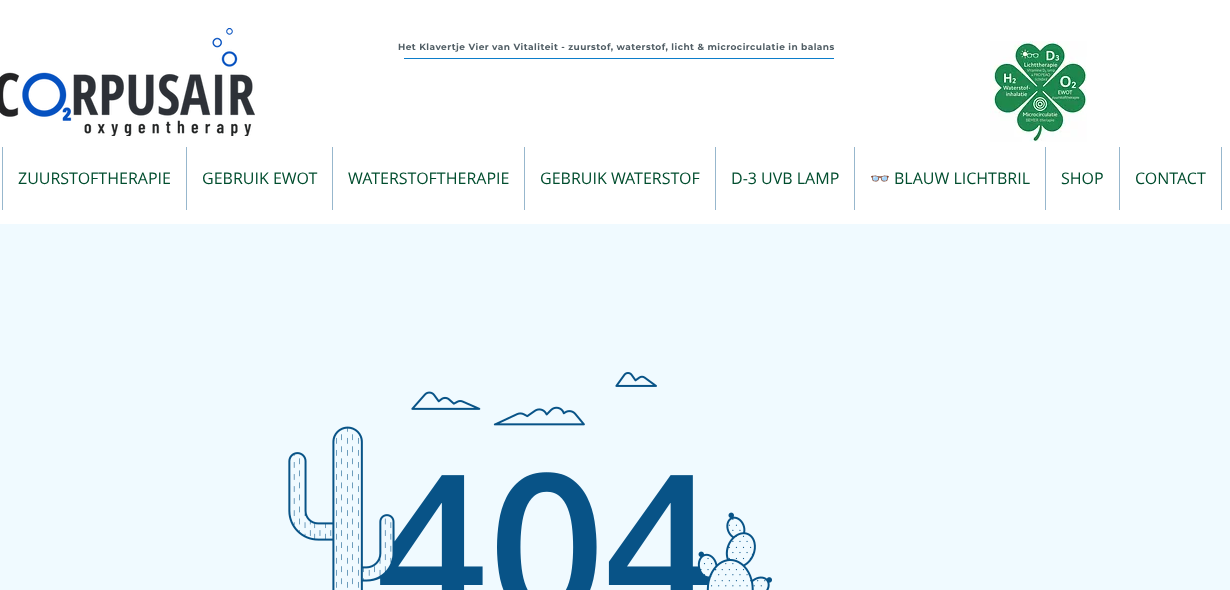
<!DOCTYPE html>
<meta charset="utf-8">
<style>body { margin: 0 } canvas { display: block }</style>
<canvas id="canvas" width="1230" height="590"></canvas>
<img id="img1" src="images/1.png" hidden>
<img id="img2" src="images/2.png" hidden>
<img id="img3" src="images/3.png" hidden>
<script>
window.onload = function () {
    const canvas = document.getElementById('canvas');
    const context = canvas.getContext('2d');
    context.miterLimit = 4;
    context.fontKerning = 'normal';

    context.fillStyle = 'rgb(240, 250, 255)';
    context.fillRect(0, 0, 1230, 590);
    context.fillStyle = 'rgb(255, 255, 255)';
    context.fillRect(0, 0, 1230, 224);
    context.drawImage(document.getElementById('img1'), 0, 28, 255, 108);
    context.drawImage(document.getElementById('img2'), 990, 41, 97, 101);
    context.fillStyle = 'rgb(12, 125, 202)';
    context.fillRect(404, 58, 430, 1);
    context.fillStyle = 'rgb(151, 183, 205)';
    context.fillRect(2, 147, 1, 63);
    context.fillRect(186, 147, 1, 63);
    context.fillRect(332, 147, 1, 63);
    context.fillRect(524, 147, 1, 63);
    context.fillRect(715, 147, 1, 63);
    context.fillRect(854, 147, 1, 63);
    context.fillRect(1045, 147, 1, 63);
    context.fillRect(1119, 147, 1, 63);
    context.fillRect(1221, 147, 1, 63);
    context.drawImage(document.getElementById('img3'), 288, 372, 484, 218);
    context.letterSpacing = '0.45px';
    context.font = 'bold 9px Montserrat';
    context.fillStyle = 'rgb(81, 94, 101)';
    context.fillText('Het Klavertje Vier van Vitaliteit - zuurstof, waterstof, licht & microcirculatie in balans', 398, 50);
    context.letterSpacing = '0px';
    context.font = '16px Open Sans';
    context.fillStyle = 'rgb(0, 77, 46)';
    context.fillText('ZUURSTOFTHERAPIE', 18, 184);
    context.fillText('GEBRUIK EWOT', 202, 184);
    context.fillText('WATERSTOFTHERAPIE', 348, 184);
    context.fillText('GEBRUIK WATERSTOF', 540, 184);
    context.fillText('D-3 UVB LAMP', 731, 184);
    context.font = '16px Noto Color Emoji';
    context.fillText('👓', 870, 184);
    context.font = '16px Open Sans';
    context.fillText('BLAUW LICHTBRIL', 894, 184);
    context.fillText('SHOP', 1061, 184);
    context.fillText('CONTACT', 1135, 184);
};
</script>
